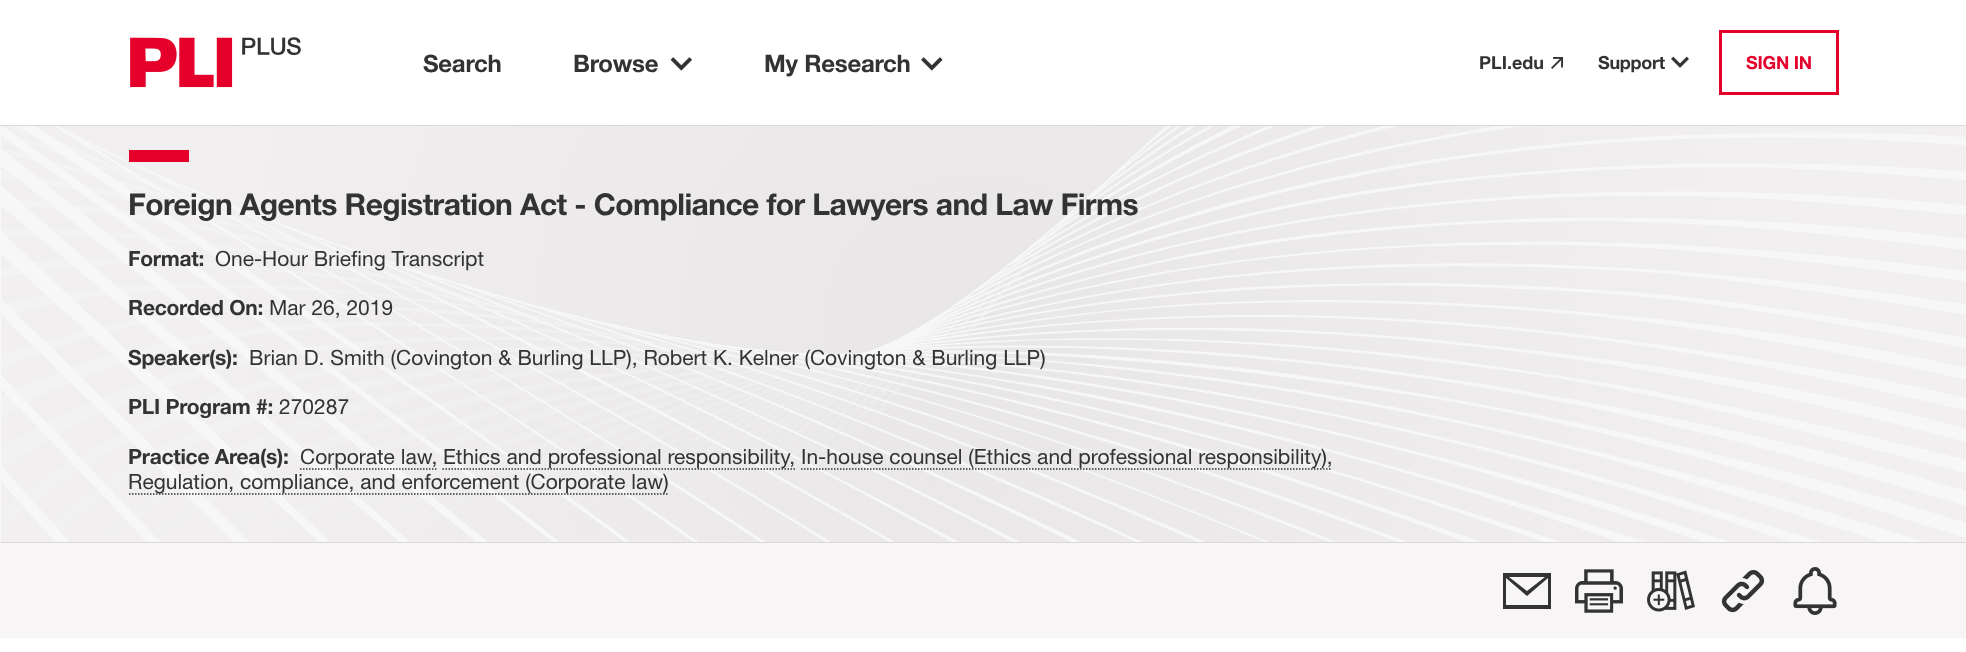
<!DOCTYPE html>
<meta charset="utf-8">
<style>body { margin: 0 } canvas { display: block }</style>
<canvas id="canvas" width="1966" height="652"></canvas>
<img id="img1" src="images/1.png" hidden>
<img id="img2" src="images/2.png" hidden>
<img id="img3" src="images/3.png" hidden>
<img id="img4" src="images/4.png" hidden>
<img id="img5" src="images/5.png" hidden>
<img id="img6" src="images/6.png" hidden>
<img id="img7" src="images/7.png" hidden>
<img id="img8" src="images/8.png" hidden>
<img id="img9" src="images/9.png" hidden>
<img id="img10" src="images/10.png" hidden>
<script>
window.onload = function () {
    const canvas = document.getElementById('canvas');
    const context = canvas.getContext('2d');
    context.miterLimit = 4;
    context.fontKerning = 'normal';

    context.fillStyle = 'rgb(255, 255, 255)';
    context.fillRect(0, 0, 1966, 652);
    context.fillStyle = 'rgb(222, 217, 217)';
    context.fillRect(0, 125, 1966, 2);
    context.drawImage(document.getElementById('img1'), 130, 37, 171, 51);
    context.drawImage(document.getElementById('img2'), 670, 57, 22, 14);
    context.drawImage(document.getElementById('img3'), 921, 57, 22, 14);
    context.drawImage(document.getElementById('img4'), 1551, 57, 12, 12);
    context.drawImage(document.getElementById('img5'), 1671, 56, 18, 12);
    context.strokeStyle = 'rgb(228, 0, 43)';
    context.lineWidth = 3;
    context.strokeRect(1720.5, 31.5, 117, 62);
    context.drawImage(document.getElementById('img6'), 0, 126, 1966, 416);
    context.fillRect(0, 542, 1966, 1);
    context.fillStyle = 'rgb(228, 0, 43)';
    context.fillRect(129, 150, 60, 12);
    context.beginPath();
    context.moveTo(300, 469);
    context.lineTo(436.5, 469);
    context.strokeStyle = 'rgb(51, 51, 51)';
    context.lineWidth = 1.5;
    context.setLineDash([1.5, 1.5]);
    context.stroke();
    context.beginPath();
    context.moveTo(442.5, 469);
    context.lineTo(795, 469);
    context.stroke();
    context.beginPath();
    context.moveTo(801, 469);
    context.lineTo(1332, 469);
    context.stroke();
    context.beginPath();
    context.moveTo(129, 494);
    context.lineTo(669, 494);
    context.stroke();
    context.fillStyle = 'rgb(247, 245, 245)';
    context.fillRect(0, 543, 1966, 95);
    context.fillStyle = 'rgb(51, 51, 51)';
    context.beginPath();
    context.moveTo(1503, 573);
    context.lineTo(1503, 609);
    context.lineTo(1503, 573);
    context.lineTo(1503, 609);
    context.lineTo(1551, 609);
    context.lineTo(1551, 573);
    context.closePath();
    context.moveTo(1545, 577);
    context.lineTo(1527, 591);
    context.lineTo(1545, 577);
    context.lineTo(1527, 591);
    context.lineTo(1509, 577);
    context.closePath();
    context.moveTo(1506, 605);
    context.lineTo(1506, 578);
    context.lineTo(1506, 605);
    context.lineTo(1506, 578);
    context.lineTo(1527, 596);
    context.lineTo(1548, 578);
    context.lineTo(1548, 605);
    context.closePath();
    context.fill();
    context.drawImage(document.getElementById('img7'), 1575, 569, 48, 44);
    context.drawImage(document.getElementById('img8'), 1647, 570, 48, 42);
    context.drawImage(document.getElementById('img9'), 1721, 570, 44, 43);
    context.drawImage(document.getElementById('img10'), 1793, 567, 44, 48);
    context.letterSpacing = '-0.25px';
    context.font = 'bold 24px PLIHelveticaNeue';
    context.fillText('Search', 423, 72);
    context.fillText('Browse', 573, 72);
    context.fillText('My Research', 764, 72);
    context.letterSpacing = '0px';
    context.font = 'bold 18px PLIHelveticaNeue';
    context.fillText('PLI.edu', 1479, 69);
    context.letterSpacing = '-0.25px';
    context.fillText('Support', 1598, 69);
    context.fillStyle = 'rgb(228, 0, 43)';
    context.fillText('SIGN IN', 1746, 69);
    context.letterSpacing = '-0.6px';
    context.font = 'bold 30px PLIHelveticaNeue';
    context.fillStyle = 'rgb(51, 51, 51)';
    context.fillText('Foreign Agents Registration Act - Compliance for Lawyers and Law Firms', 128, 215);
    context.letterSpacing = '-0.25px';
    context.font = 'bold 21px PLIHelveticaNeue';
    context.fillText('Format:', 128, 266);
    context.letterSpacing = '0px';
    context.font = '21px PLIHelveticaNeue';
    context.fillText('One-Hour Briefing Transcript', 215, 266);
    context.letterSpacing = '-0.25px';
    context.font = 'bold 21px PLIHelveticaNeue';
    context.fillText('Recorded On:', 128, 315);
    context.letterSpacing = '0px';
    context.font = '21px PLIHelveticaNeue';
    context.fillText('Mar 26, 2019', 269, 315);
    context.letterSpacing = '-0.25px';
    context.font = 'bold 21px PLIHelveticaNeue';
    context.fillText('Speaker(s):', 128, 365);
    context.letterSpacing = '0px';
    context.font = '21px PLIHelveticaNeue';
    context.fillText('Brian D. Smith (Covington & Burling LLP), Robert K. Kelner (Covington & Burling LLP)', 249, 365);
    context.letterSpacing = '-0.25px';
    context.font = 'bold 21px PLIHelveticaNeue';
    context.fillText('PLI Program #:', 128, 414);
    context.letterSpacing = '0px';
    context.font = '21px PLIHelveticaNeue';
    context.fillText('270287', 279, 414);
    context.letterSpacing = '-0.25px';
    context.font = 'bold 21px PLIHelveticaNeue';
    context.fillText('Practice Area(s):', 128, 464);
    context.letterSpacing = '0px';
    context.font = '21px PLIHelveticaNeue';
    context.fillText('Corporate law,', 300, 464);
    context.fillText('Ethics and professional responsibility,', 443, 464);
    context.fillText('In-house counsel (Ethics and professional responsibility),', 801, 464);
    context.fillText('Regulation, compliance, and enforcement (Corporate law)', 128, 489);
};
</script>
